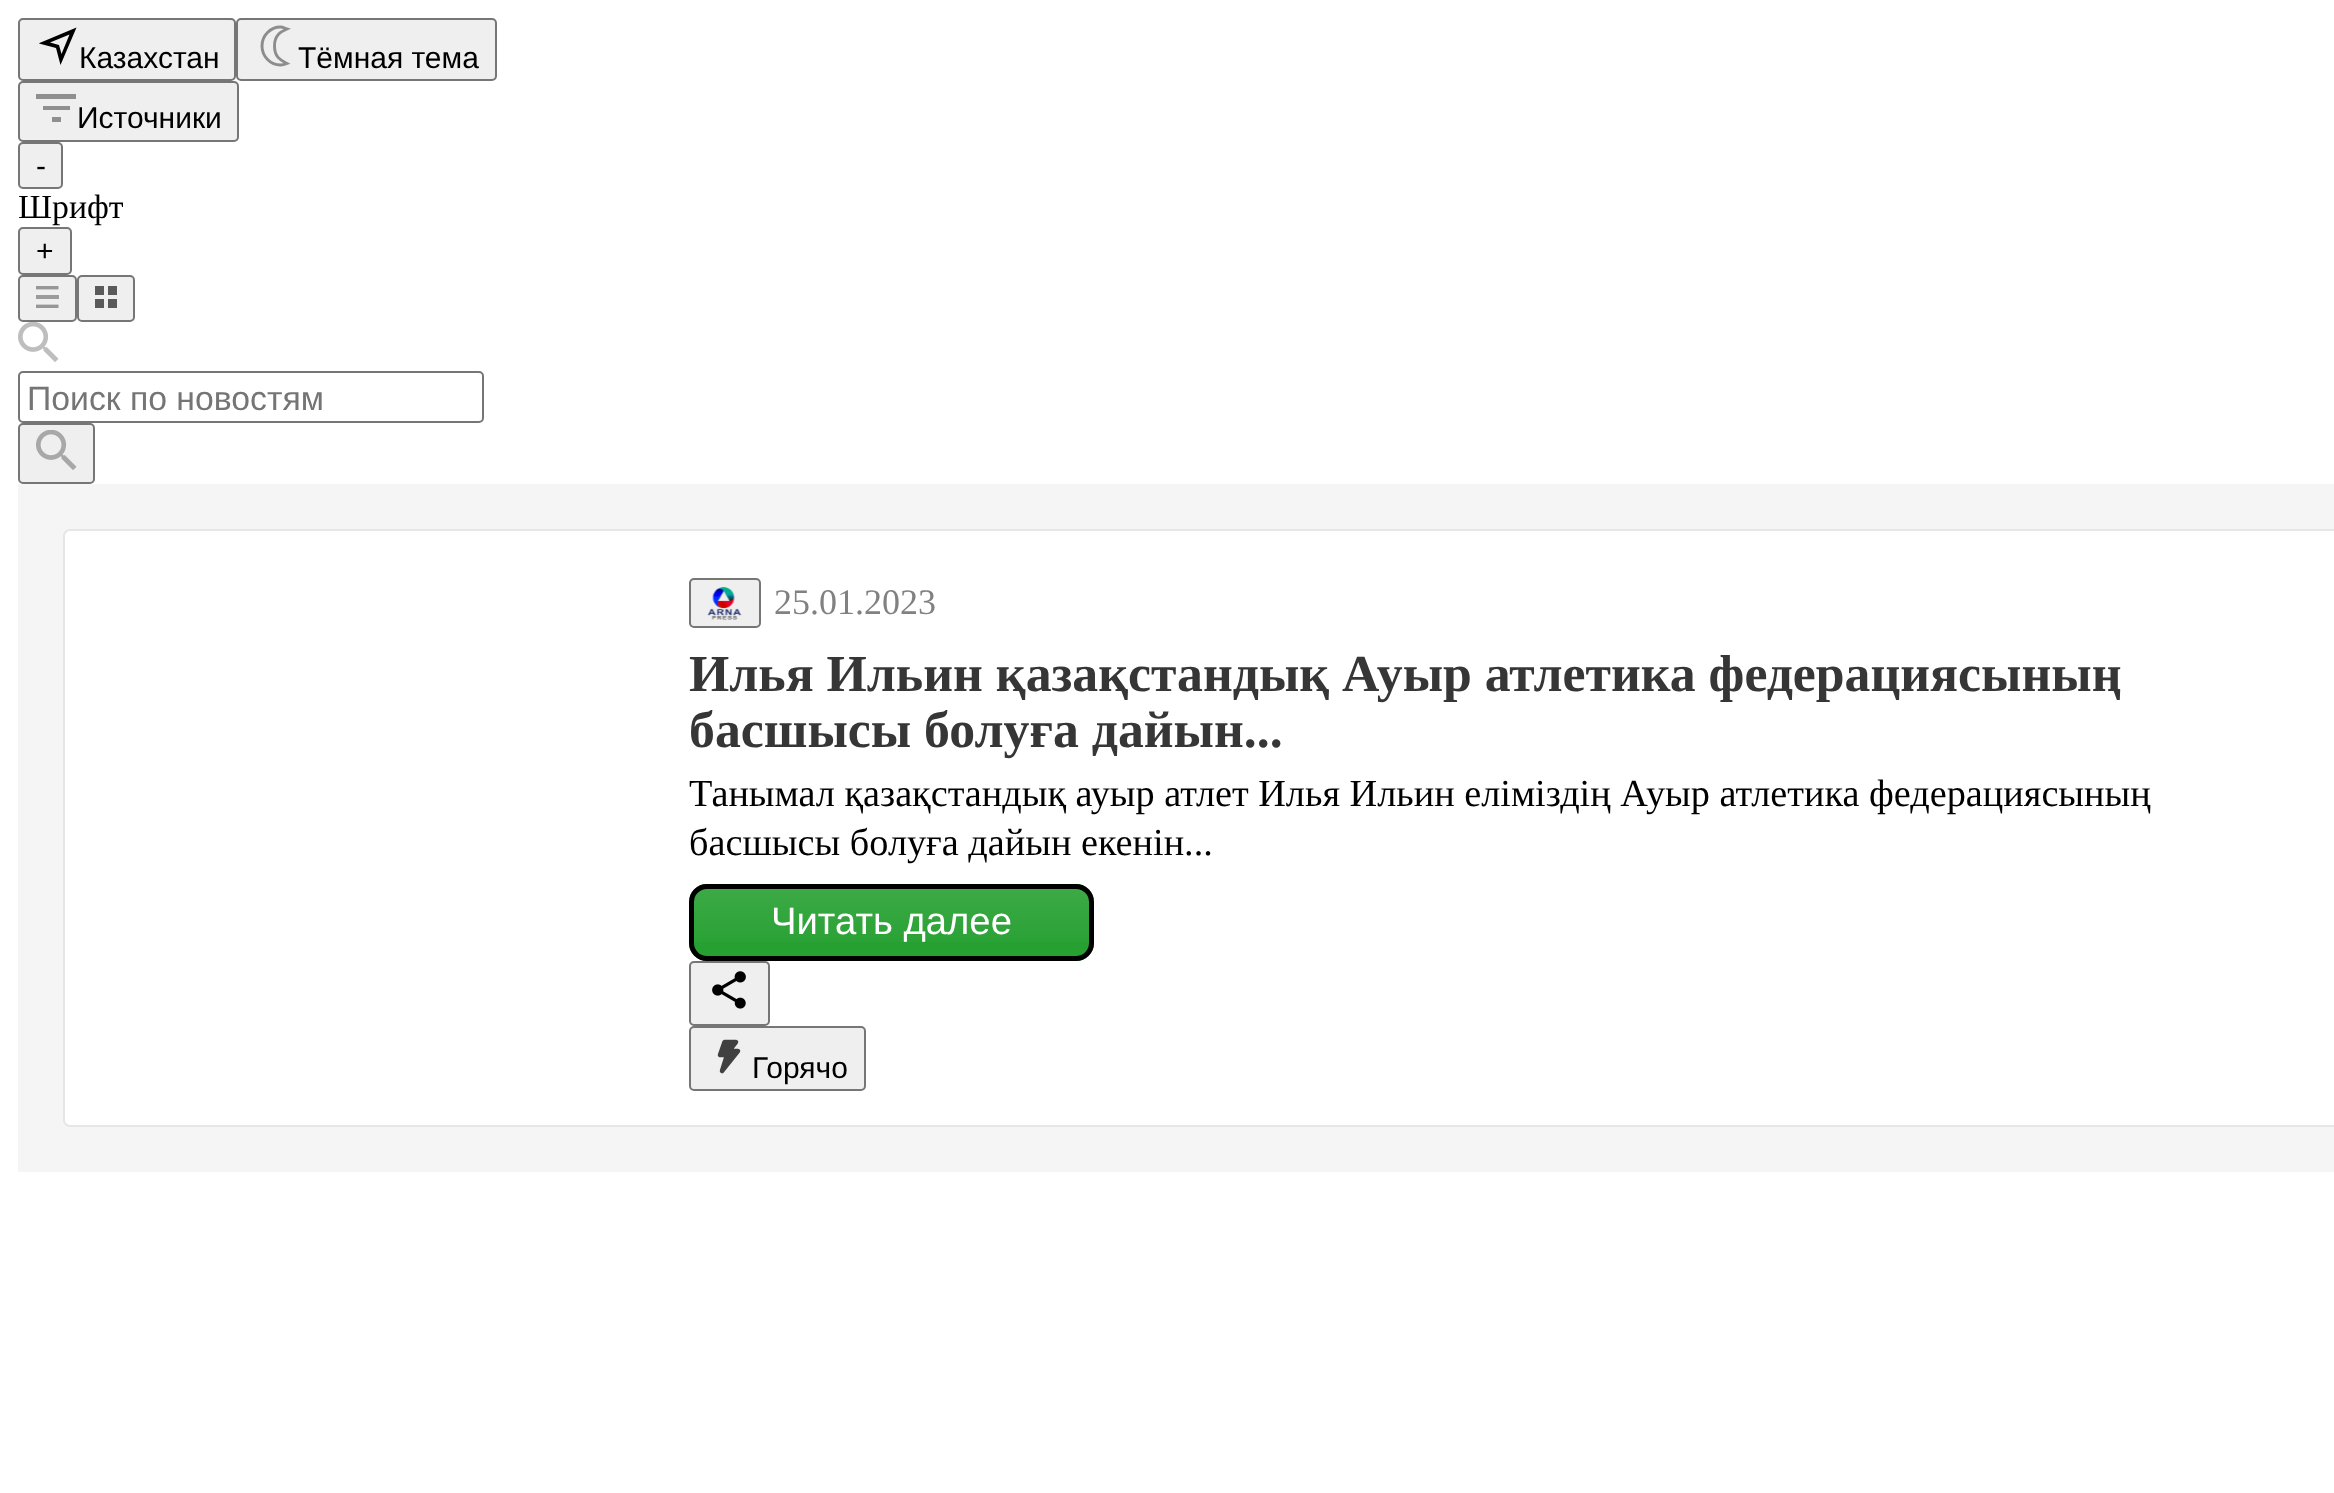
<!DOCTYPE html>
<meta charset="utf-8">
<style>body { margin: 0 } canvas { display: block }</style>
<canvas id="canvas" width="2334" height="1493"></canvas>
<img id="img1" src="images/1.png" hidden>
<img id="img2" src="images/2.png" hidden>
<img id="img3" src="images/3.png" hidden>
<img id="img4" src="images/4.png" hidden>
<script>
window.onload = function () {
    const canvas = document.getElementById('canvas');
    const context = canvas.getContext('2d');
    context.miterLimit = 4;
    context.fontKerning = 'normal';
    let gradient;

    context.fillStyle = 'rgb(255, 255, 255)';
    context.fillRect(0, 0, 2334, 1493);
    context.fillStyle = 'rgb(239, 239, 239)';
    context.beginPath();
    context.roundRect(19, 19, 216, 61, 4);
    context.fill();
    context.strokeStyle = 'rgb(118, 118, 118)';
    context.lineWidth = 2;
    context.stroke();
    context.fillStyle = 'rgb(0, 0, 0)';
    context.beginPath();
    context.moveTo(39.5, 43);
    context.lineTo(39, 43.5);
    context.lineTo(56, 48);
    context.lineTo(60.5, 65);
    context.lineTo(76.5, 27.5);
    context.closePath();
    context.moveTo(59, 45);
    context.lineTo(50, 42.5);
    context.lineTo(69.5, 34.5);
    context.lineTo(61.5, 54);
    context.closePath();
    context.fill();
    context.fillStyle = 'rgb(239, 239, 239)';
    context.beginPath();
    context.roundRect(237, 19, 259, 61, 4);
    context.fill();
    context.stroke();
    context.beginPath();
    context.moveTo(280.5, 65);
    context.bezierCurveTo(270.5, 65, 262, 56.5, 262, 46);
    context.bezierCurveTo(262, 35.5, 270.5, 27, 280.5, 27);
    context.bezierCurveTo(283.5, 27, 284, 28, 287, 29);
    context.bezierCurveTo(282.5, 31, 274.5, 34, 274.5, 46);
    context.bezierCurveTo(274.5, 58, 281.5, 60.5, 287, 63.5);
    context.bezierCurveTo(284.5, 64.5, 283.5, 65, 280.5, 65);
    context.closePath();
    context.strokeStyle = 'rgb(141, 141, 141)';
    context.lineWidth = 2.9;
    context.stroke();
    context.beginPath();
    context.roundRect(19, 82, 219, 59, 4);
    context.fill();
    context.strokeStyle = 'rgb(118, 118, 118)';
    context.lineWidth = 2;
    context.stroke();
    context.fillStyle = 'rgb(143, 143, 143)';
    context.beginPath();
    context.moveTo(52, 122);
    context.lineTo(61, 122);
    context.lineTo(61, 117);
    context.lineTo(52, 117);
    context.closePath();
    context.moveTo(36, 94);
    context.lineTo(36, 99);
    context.lineTo(76, 99);
    context.lineTo(76, 94);
    context.closePath();
    context.moveTo(43, 110);
    context.lineTo(70, 110);
    context.lineTo(70, 106);
    context.lineTo(43, 106);
    context.closePath();
    context.fill();
    context.fillStyle = 'rgb(239, 239, 239)';
    context.beginPath();
    context.roundRect(19, 143, 43, 45, 4);
    context.fill();
    context.stroke();
    context.beginPath();
    context.roundRect(19, 228, 52, 46, 4);
    context.fill();
    context.stroke();
    context.beginPath();
    context.roundRect(19, 276, 57, 45, 4);
    context.fill();
    context.stroke();
    context.save();
    context.beginPath();
    context.rect(36, 286, 23, 22);
    context.clip();
    context.beginPath();
    context.moveTo(36, 287.5);
    context.lineTo(58.5, 287.5);
    context.strokeStyle = 'rgb(151, 151, 151)';
    context.lineWidth = 3.8;
    context.stroke();
    context.restore();
    context.fillStyle = 'rgb(155, 155, 155)';
    context.fillRect(36, 295, 23, 4);
    context.save();
    context.beginPath();
    context.rect(36, 286, 23, 22);
    context.clip();
    context.beginPath();
    context.moveTo(36, 306.5);
    context.lineTo(58.5, 306.5);
    context.strokeStyle = 'rgb(151, 151, 151)';
    context.lineWidth = 3.8;
    context.stroke();
    context.restore();
    context.fillStyle = 'rgb(239, 239, 239)';
    context.beginPath();
    context.roundRect(78, 276, 56, 45, 4);
    context.fill();
    context.stroke();
    context.fillStyle = 'rgb(90, 90, 90)';
    context.fillRect(95, 286, 9, 9);
    context.fillRect(108, 286, 9, 9);
    context.fillRect(95, 299, 9, 9);
    context.fillRect(108, 299, 9, 9);
    context.drawImage(document.getElementById('img1'), 18, 322, 41, 40);
    context.beginPath();
    context.roundRect(19, 372, 464, 50, 4);
    context.stroke();
    context.fillStyle = 'rgb(239, 239, 239)';
    context.beginPath();
    context.roundRect(19, 424, 75, 59, 4);
    context.fill();
    context.stroke();
    context.drawImage(document.getElementById('img2'), 36, 430, 41, 40);
    context.fillStyle = 'rgb(245, 245, 245)';
    context.fillRect(18, 484, 2316, 688);
    context.fillStyle = 'rgb(255, 255, 255)';
    context.beginPath();
    context.roundRect(64, 530, 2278, 596, 6);
    context.fill();
    context.strokeStyle = 'rgb(230, 230, 230)';
    context.stroke();
    context.fillStyle = 'rgb(239, 239, 239)';
    context.beginPath();
    context.roundRect(690, 579, 70, 48, 4);
    context.fill();
    context.strokeStyle = 'rgb(118, 118, 118)';
    context.stroke();
    context.drawImage(document.getElementById('img3'), 707, 586, 35, 34);
    context.fillStyle = 'rgb(38, 160, 49)';
    context.beginPath();
    context.roundRect(689, 884, 405, 77, 18);
    context.fill();
    context.save();
    context.beginPath();
    context.roundRect(689, 884, 405, 77, 18);
    context.clip();
    gradient = context.createLinearGradient(891, 889, 891, 956);
    gradient.addColorStop(0, 'rgba(255, 255, 255, 0.1)');
    gradient.addColorStop(1, 'rgba(255, 255, 255, 0)');
    context.fillStyle = gradient;
    context.fillRect(689, 889, 405, 53);
    context.restore();
    context.beginPath();
    context.roundRect(691.5, 886.5, 400, 72, 15.5);
    context.strokeStyle = 'rgb(0, 0, 0)';
    context.lineWidth = 5;
    context.stroke();
    context.fillStyle = 'rgb(239, 239, 239)';
    context.beginPath();
    context.roundRect(690, 962, 79, 63, 4);
    context.fill();
    context.strokeStyle = 'rgb(118, 118, 118)';
    context.lineWidth = 2;
    context.stroke();
    context.drawImage(document.getElementById('img4'), 712, 971, 34, 38);
    context.beginPath();
    context.roundRect(690, 1027, 175, 63, 4);
    context.fill();
    context.stroke();
    context.fillStyle = 'rgb(64, 64, 64)';
    context.beginPath();
    context.moveTo(736, 1042);
    context.lineTo(724.5, 1042);
    context.lineTo(720, 1055);
    context.lineTo(727, 1055);
    context.lineTo(722, 1071);
    context.lineTo(738, 1051);
    context.lineTo(729, 1051);
    context.closePath();
    context.fill();
    context.strokeStyle = 'rgb(64, 64, 64)';
    context.lineWidth = 4.5;
    context.lineJoin = 'round';
    context.stroke();
    context.font = '30px Liberation Sans';
    context.fillStyle = 'rgb(0, 0, 0)';
    context.fillText('Казахстан', 79, 68);
    context.fillText('Тёмная тема', 298, 68);
    context.fillText('Источники', 77, 128);
    context.fillText('-', 36, 176);
    context.font = '33.75px Liberation Serif';
    context.fillText('Шрифт', 18, 218);
    context.font = '30px Liberation Sans';
    context.fillText('+', 36, 261);
    context.font = '33.75px Liberation Sans';
    context.fillStyle = 'rgb(117, 117, 117)';
    context.fillText('Поиск по новостям', 27, 410);
    context.font = '36px Liberation Serif';
    context.fillStyle = 'rgb(129, 129, 129)';
    context.fillText('25.01.2023', 774, 614);
    context.font = 'bold 51.75px Liberation Serif';
    context.fillStyle = 'rgb(54, 54, 54)';
    context.fillText('Илья Ильин қазақстандық Ауыр атлетика федерациясының', 689, 691);
    context.fillText('басшысы болуға дайын...', 689, 747);
    context.font = '38.25px Liberation Serif';
    context.fillStyle = 'rgb(0, 0, 0)';
    context.fillText('Танымал қазақстандық ауыр атлет Илья Ильин еліміздің Ауыр атлетика федерациясының', 689, 806);
    context.fillText('басшысы болуға дайын екенін...', 689, 855);
    context.font = '38.25px Liberation Sans';
    context.fillStyle = 'rgb(255, 255, 255)';
    context.fillText('Читать далее', 771, 934);
    context.font = '30px Liberation Sans';
    context.fillStyle = 'rgb(0, 0, 0)';
    context.fillText('Горячо', 752, 1078);
};
</script>
